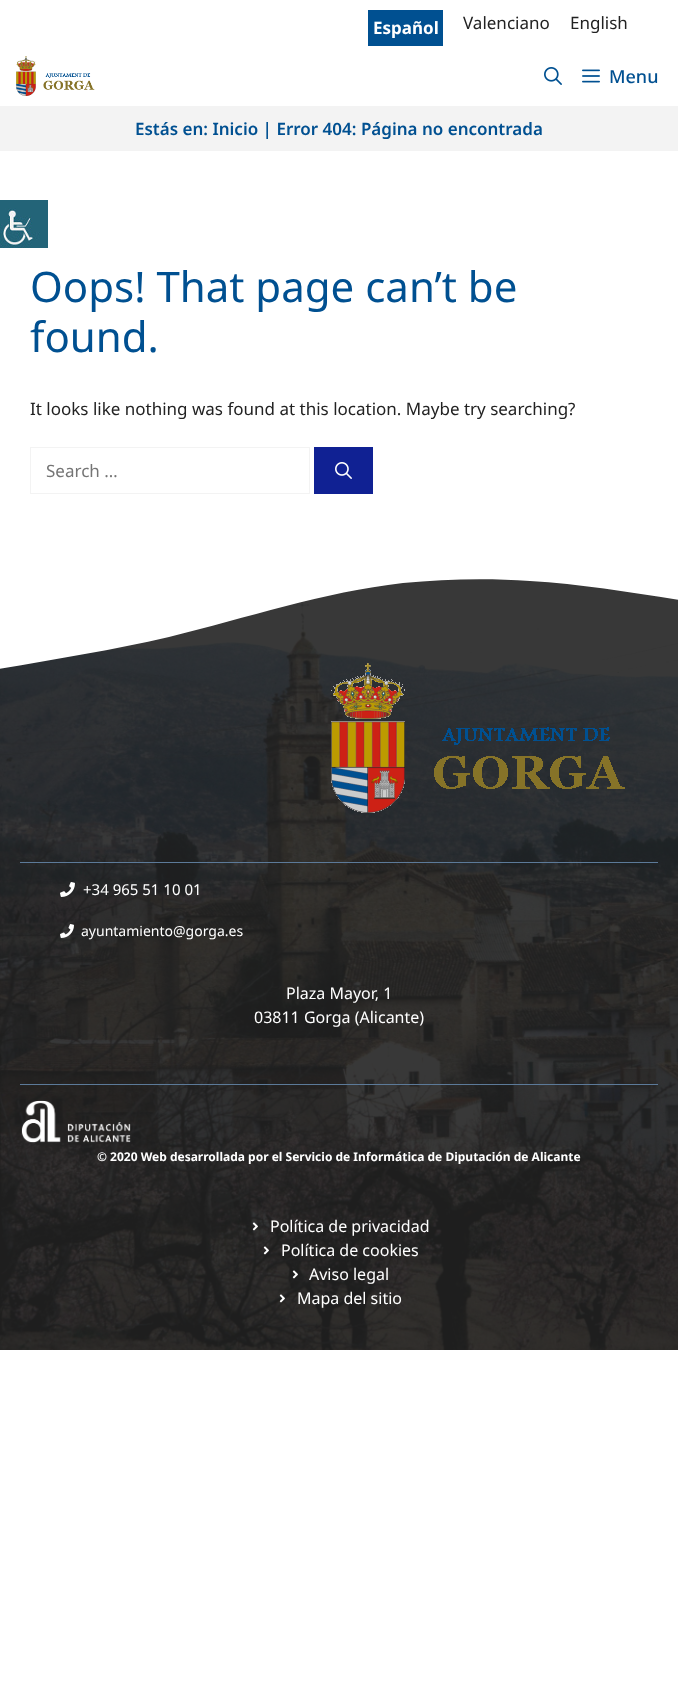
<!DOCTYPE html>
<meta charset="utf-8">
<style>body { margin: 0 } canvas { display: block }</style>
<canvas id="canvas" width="678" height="1688"></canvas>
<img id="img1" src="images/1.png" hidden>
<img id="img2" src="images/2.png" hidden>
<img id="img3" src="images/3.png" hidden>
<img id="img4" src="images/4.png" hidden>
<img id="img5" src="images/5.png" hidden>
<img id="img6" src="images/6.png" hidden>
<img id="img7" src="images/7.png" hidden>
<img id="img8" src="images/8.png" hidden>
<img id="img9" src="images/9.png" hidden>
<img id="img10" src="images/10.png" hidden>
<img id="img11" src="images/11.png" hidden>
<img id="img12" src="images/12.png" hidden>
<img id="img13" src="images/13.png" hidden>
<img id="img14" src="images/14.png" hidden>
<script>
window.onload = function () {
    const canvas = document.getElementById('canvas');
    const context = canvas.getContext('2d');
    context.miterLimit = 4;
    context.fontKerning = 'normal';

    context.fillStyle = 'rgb(255, 255, 255)';
    context.fillRect(0, 0, 678, 1688);
    context.fillStyle = 'rgb(0, 80, 145)';
    context.fillRect(368, 10, 75, 36);
    context.drawImage(document.getElementById('img1'), 16, 56, 79, 40);
    context.drawImage(document.getElementById('img2'), 544, 67, 18, 18);
    context.drawImage(document.getElementById('img3'), 582, 69, 18, 14);
    context.fillStyle = 'rgb(243, 243, 243)';
    context.fillRect(0, 106, 678, 45);
    context.drawImage(document.getElementById('img4'), 0, 200, 48, 48);
    context.strokeStyle = 'rgb(243, 243, 243)';
    context.strokeRect(30.5, 447.5, 279, 46);
    context.fillStyle = 'rgb(16, 33, 147)';
    context.fillRect(314, 447, 59, 47);
    context.drawImage(document.getElementById('img5'), 335, 462, 17, 17);
    context.fillStyle = 'rgb(34, 34, 34)';
    context.fillRect(0, 579, 678, 771);
    context.drawImage(document.getElementById('img6'), 0, 579, 678, 771);
    context.save();
    context.beginPath();
    context.rect(0, 570, 678, 99);
    context.clip();
    context.fillStyle = 'rgb(255, 255, 255)';
    context.beginPath();
    context.moveTo(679, 600);
    context.bezierCurveTo(629, 592, 580, 584, 530, 581);
    context.bezierCurveTo(488, 578, 445, 579, 403, 583);
    context.bezierCurveTo(323, 592, 247, 618, 169, 637);
    context.bezierCurveTo(113, 650, 56, 659, -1, 669);
    context.lineTo(-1, 569);
    context.lineTo(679, 569);
    context.closePath();
    context.fill();
    context.restore();
    context.drawImage(document.getElementById('img7'), 331, 663, 294, 150);
    context.fillStyle = 'rgb(92, 122, 153)';
    context.fillRect(20, 862, 638, 1);
    context.fillRect(20, 1084, 638, 1);
    context.drawImage(document.getElementById('img8'), 60, 882, 15, 15);
    context.drawImage(document.getElementById('img9'), 60, 924, 14, 14);
    context.drawImage(document.getElementById('img10'), 21, 1100, 110, 43);
    context.drawImage(document.getElementById('img11'), 252, 1222, 6, 9);
    context.drawImage(document.getElementById('img12'), 263, 1246, 6, 9);
    context.drawImage(document.getElementById('img13'), 292, 1270, 6, 9);
    context.drawImage(document.getElementById('img14'), 279, 1294, 6, 9);
    context.font = 'bold 17px Noto Sans';
    context.fillStyle = 'rgb(255, 255, 255)';
    context.fillText('Español', 373, 34);
    context.font = '17px Noto Sans';
    context.fillStyle = 'rgb(34, 34, 34)';
    context.fillText('Valenciano', 463, 29);
    context.fillText('English', 570, 29);
    context.font = '500 18px Noto Sans';
    context.fillStyle = 'rgb(0, 80, 145)';
    context.fillText('Menu', 609, 83);
    context.font = '600 17px Noto Sans';
    context.fillText('Estás en: Inicio | Error 404: Página no encontrada', 135, 135);
    context.font = '42px Noto Sans';
    context.fillText('Oops! That page can’t be', 30, 302);
    context.fillText('found.', 30, 352);
    context.font = '17px Noto Sans';
    context.fillStyle = 'rgb(34, 34, 34)';
    context.fillText('It looks like nothing was found at this location. Maybe try searching?', 30, 415);
    context.fillStyle = 'rgb(117, 117, 117)';
    context.fillText('Search …', 46, 477);
    context.font = '15px Noto Sans';
    context.fillStyle = 'rgb(255, 255, 255)';
    context.fillText('+34 965 51 10 01', 83, 895);
    context.font = '14px Noto Sans';
    context.fillText('ayuntamiento@gorga.es', 81, 936);
    context.font = '16px Noto Sans';
    context.fillText('Plaza Mayor, 1', 286, 999);
    context.fillText('03811 Gorga (Alicante)', 254, 1023);
    context.font = 'bold 12px Noto Sans';
    context.fillText('© 2020 Web desarrollada por el Servicio de Informática de Diputación de Alicante', 97, 1161);
    context.font = '16px Noto Sans';
    context.fillText('Política de privacidad', 270, 1232);
    context.fillText('Política de cookies', 281, 1256);
    context.fillText('Aviso legal', 309, 1280);
    context.fillText('Mapa del sitio', 297, 1304);
};
</script>
